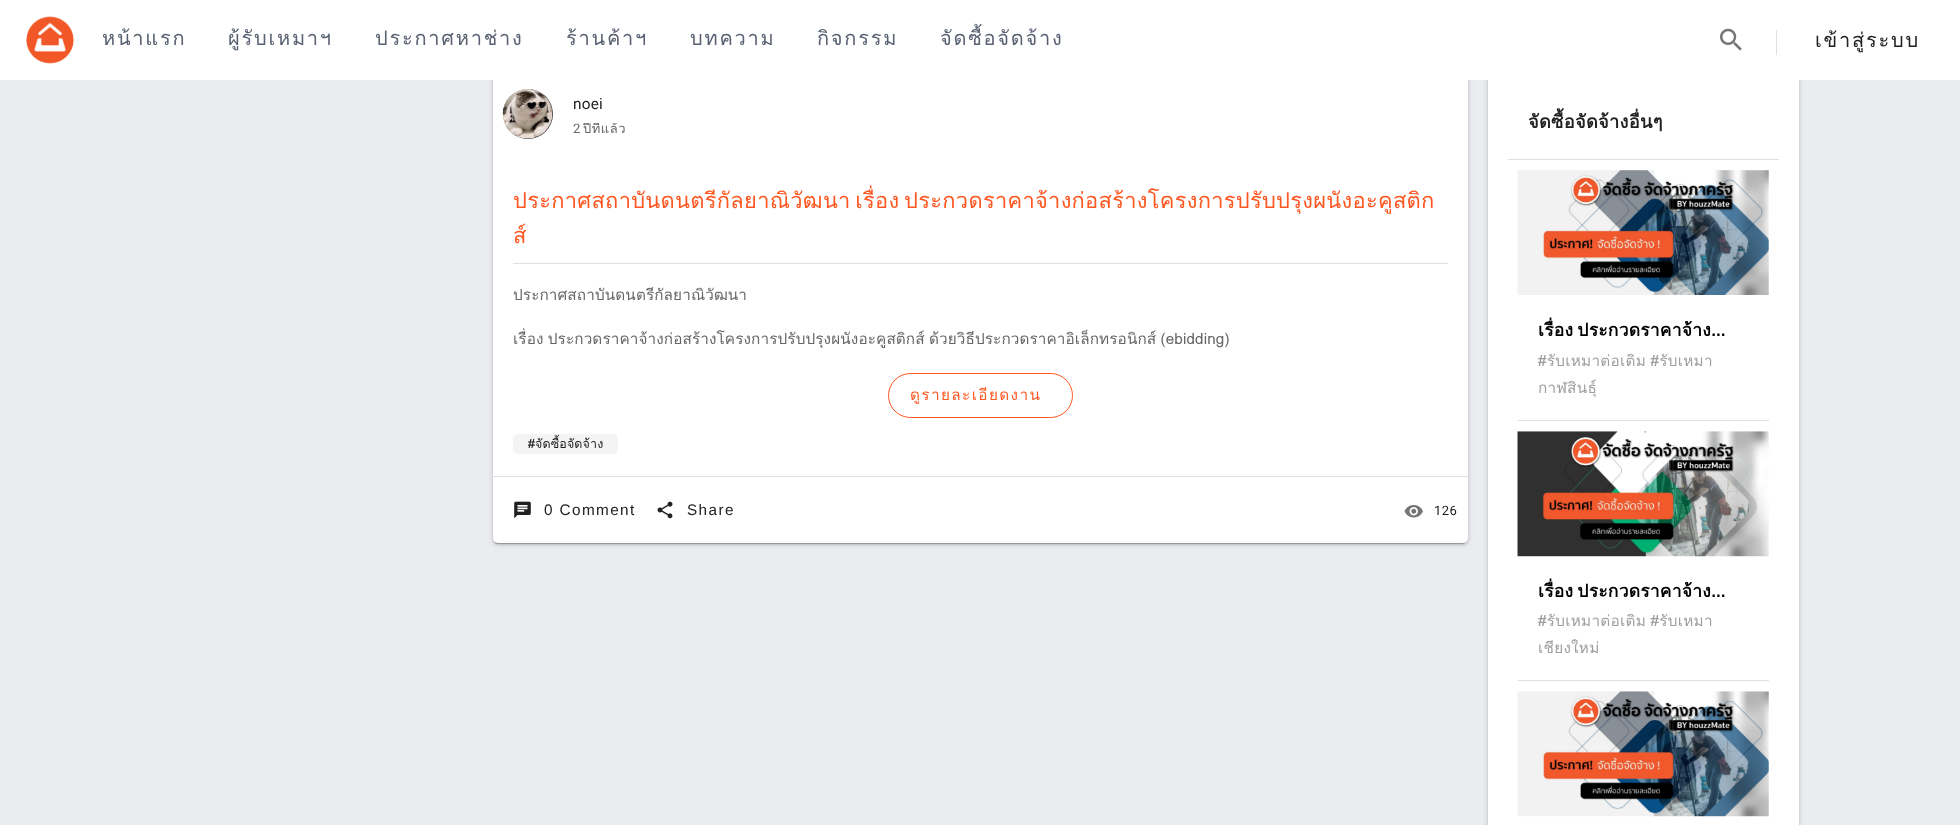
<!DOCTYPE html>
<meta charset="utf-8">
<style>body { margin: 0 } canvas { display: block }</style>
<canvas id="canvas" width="1960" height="825"></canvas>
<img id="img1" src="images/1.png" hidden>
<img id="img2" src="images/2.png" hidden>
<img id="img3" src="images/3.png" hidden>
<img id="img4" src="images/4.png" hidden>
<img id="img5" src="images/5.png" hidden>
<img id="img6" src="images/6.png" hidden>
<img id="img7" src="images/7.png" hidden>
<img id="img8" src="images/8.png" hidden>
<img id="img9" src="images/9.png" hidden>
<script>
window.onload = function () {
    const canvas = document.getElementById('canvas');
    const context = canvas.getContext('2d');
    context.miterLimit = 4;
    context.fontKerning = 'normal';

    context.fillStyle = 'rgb(234, 236, 240)';
    context.fillRect(0, 0, 1960, 825);
    context.fillStyle = 'rgba(0, 0, 0, 0.12)';
    context.filter = 'blur(3px)';
    context.beginPath();
    context.roundRect(493, 65, 975, 479, 5);
    context.fill();
    context.filter = 'none';
    context.fillStyle = 'rgba(0, 0, 0, 0.14)';
    context.filter = 'blur(1px)';
    context.beginPath();
    context.roundRect(493, 66, 975, 479, 5);
    context.fill();
    context.filter = 'none';
    context.fillStyle = 'rgba(0, 0, 0, 0.2)';
    context.filter = 'blur(0.5px)';
    context.beginPath();
    context.roundRect(495, 70, 970, 474, 2.5);
    context.fill();
    context.filter = 'none';
    context.fillStyle = 'rgb(255, 255, 255)';
    context.beginPath();
    context.roundRect(493, 64, 975, 479, 5);
    context.fill();
    context.fillStyle = 'rgba(0, 0, 0, 0.12)';
    context.filter = 'blur(3px)';
    context.beginPath();
    context.roundRect(1488, 65, 311, 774, 5);
    context.fill();
    context.filter = 'none';
    context.fillStyle = 'rgba(0, 0, 0, 0.14)';
    context.filter = 'blur(1px)';
    context.beginPath();
    context.roundRect(1488, 66, 311, 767, 5);
    context.fill();
    context.filter = 'none';
    context.fillStyle = 'rgb(255, 255, 255)';
    context.fillRect(0, 0, 1960, 80);
    context.drawImage(document.getElementById('img1'), 26, 16, 48, 48);
    context.drawImage(document.getElementById('img2'), 1720, 28, 22, 23);
    context.fillStyle = 'rgb(224, 224, 224)';
    context.fillRect(1776, 30, 1, 25);
    context.fillStyle = 'rgb(66, 66, 66)';
    context.beginPath();
    context.arc(528, 114, 25, 0, 2 * Math.PI);
    context.fill();
    context.drawImage(document.getElementById('img3'), 502, 89, 51, 50);
    context.fillStyle = 'rgb(224, 224, 224)';
    context.fillRect(513, 263, 935, 1);
    context.beginPath();
    context.roundRect(888.5, 373.5, 184, 44, 22);
    context.strokeStyle = 'rgb(255, 87, 34)';
    context.stroke();
    context.fillStyle = 'rgb(244, 244, 244)';
    context.beginPath();
    context.roundRect(513, 434, 105, 20, 5);
    context.fill();
    context.fillStyle = 'rgb(224, 224, 224)';
    context.fillRect(493, 476, 975, 1);
    context.drawImage(document.getElementById('img4'), 514, 501, 17, 18);
    context.drawImage(document.getElementById('img5'), 657, 501, 16, 18);
    context.drawImage(document.getElementById('img6'), 1404, 505, 19, 13);
    context.fillStyle = 'rgb(255, 255, 255)';
    context.fillRect(1488, 80, 311, 745);
    context.fillStyle = 'rgb(224, 224, 224)';
    context.fillRect(1508, 159, 271, 1);
    context.drawImage(document.getElementById('img7'), 1517, 170, 252, 125);
    context.fillRect(1518, 420, 251, 1);
    context.drawImage(document.getElementById('img8'), 1517, 431, 252, 126);
    context.fillRect(1518, 680, 251, 1);
    context.drawImage(document.getElementById('img9'), 1517, 691, 252, 126);
    context.letterSpacing = '1.75px';
    context.font = '20px Loma';
    context.fillStyle = 'rgb(89, 97, 114)';
    context.fillText('หน้าแรก', 102, 45);
    context.fillText('ผู้รับเหมาฯ', 228, 45);
    context.fillText('ประกาศหาช่าง', 375, 45);
    context.fillText('ร้านค้าฯ', 566, 45);
    context.fillText('บทความ', 690, 45);
    context.fillText('กิจกรรม', 817, 45);
    context.fillText('จัดซื้อจัดจ้าง', 940, 45);
    context.fillStyle = 'rgb(33, 33, 33)';
    context.fillText('เข้าสู่ระบบ', 1815, 47);
    context.letterSpacing = '0.27px';
    context.font = '15.3px Roboto';
    context.fillText('noei', 573, 109);
    context.letterSpacing = '0.5px';
    context.font = '13px Roboto';
    context.fillStyle = 'rgb(102, 102, 102)';
    context.fillText('2', 573, 133);
    context.save();
    context.beginPath();
    context.rect(573, 123, 835, 15);
    context.clip();
    context.font = '13px Loma';
    context.fillText('ปีที่แล้ว', 583, 133);
    context.restore();
    context.letterSpacing = '0.27px';
    context.wordSpacing = '-3px';
    context.font = '21.9px Loma';
    context.fillStyle = 'rgb(255, 87, 34)';
    context.fillText('ประกาศสถาบันดนตรีกัลยาณิวัฒนา เรื่อง ประกวดราคาจ้างก่อสร้างโครงการปรับปรุงผนังอะคูสติก', 513, 208);
    context.wordSpacing = '0px';
    context.fillText('ส์', 513, 243);
    context.letterSpacing = '0.11px';
    context.font = '15.3px Loma';
    context.fillStyle = 'rgb(102, 102, 102)';
    context.fillText('ประกาศสถาบันดนตรีกัลยาณิวัฒนา', 513, 300);
    context.wordSpacing = '-1px';
    context.fillText('เรื่อง ประกวดราคาจ้างก่อสร้างโครงการปรับปรุงผนังอะคูสติกส์ ด้วยวิธีประกวดราคาอิเล็กทรอนิกส์ (ebidding)', 513, 344);
    context.letterSpacing = '1.4px';
    context.wordSpacing = '0px';
    context.fillStyle = 'rgb(255, 87, 34)';
    context.fillText('ดูรายละเอียดงาน', 910, 400);
    context.letterSpacing = '0.11px';
    context.font = '12.5px Loma';
    context.fillStyle = 'rgb(33, 33, 33)';
    context.fillText('#จัดซื้อจัดจ้าง', 528, 448);
    context.letterSpacing = '1.4px';
    context.font = '15.3px Liberation Sans';
    context.fillText('0 Comment', 544, 515);
    context.fillText('Share', 687, 515);
    context.letterSpacing = '0.5px';
    context.font = '13px Roboto';
    context.fillText('126', 1434, 515);
    context.letterSpacing = '0.27px';
    context.font = 'bold 18.25px Loma';
    context.fillText('จัดซื้อจัดจ้างอื่นๆ', 1528, 128);
    context.save();
    context.beginPath();
    context.rect(1538, 315, 211, 31);
    context.clip();
    context.letterSpacing = '0.2px';
    context.wordSpacing = '-2px';
    context.font = 'bold 17.5px Loma';
    context.fillStyle = 'rgb(0, 0, 0)';
    context.fillText('เรื่อง ประกวดราคาจ้าง…', 1538, 336);
    context.restore();
    context.save();
    context.beginPath();
    context.rect(1538, 346, 211, 27);
    context.clip();
    context.wordSpacing = '-1px';
    context.font = '15.3px Loma';
    context.fillStyle = 'rgb(158, 158, 158)';
    context.fillText('#รับเหมาต่อเติม #รับเหมา', 1538, 366);
    context.restore();
    context.font = '15.3px Loma';
    context.fillStyle = 'rgb(158, 158, 158)';
    context.fillText('กาฬสินธุ์', 1538, 393);
    context.save();
    context.beginPath();
    context.rect(1538, 576, 211, 30);
    context.clip();
    context.letterSpacing = '0.2px';
    context.wordSpacing = '-2px';
    context.font = 'bold 17.5px Loma';
    context.fillStyle = 'rgb(0, 0, 0)';
    context.fillText('เรื่อง ประกวดราคาจ้าง…', 1538, 597);
    context.restore();
    context.save();
    context.beginPath();
    context.rect(1538, 606, 211, 28);
    context.clip();
    context.wordSpacing = '-1px';
    context.fillText('#รับเหมาต่อเติม #รับเหมา', 1538, 626);
    context.restore();
    context.save();
    context.beginPath();
    context.rect(1538, 634, 211, 26);
    context.clip();
    context.fillText('เชียงใหม่', 1538, 653);
    context.restore();
};
</script>
